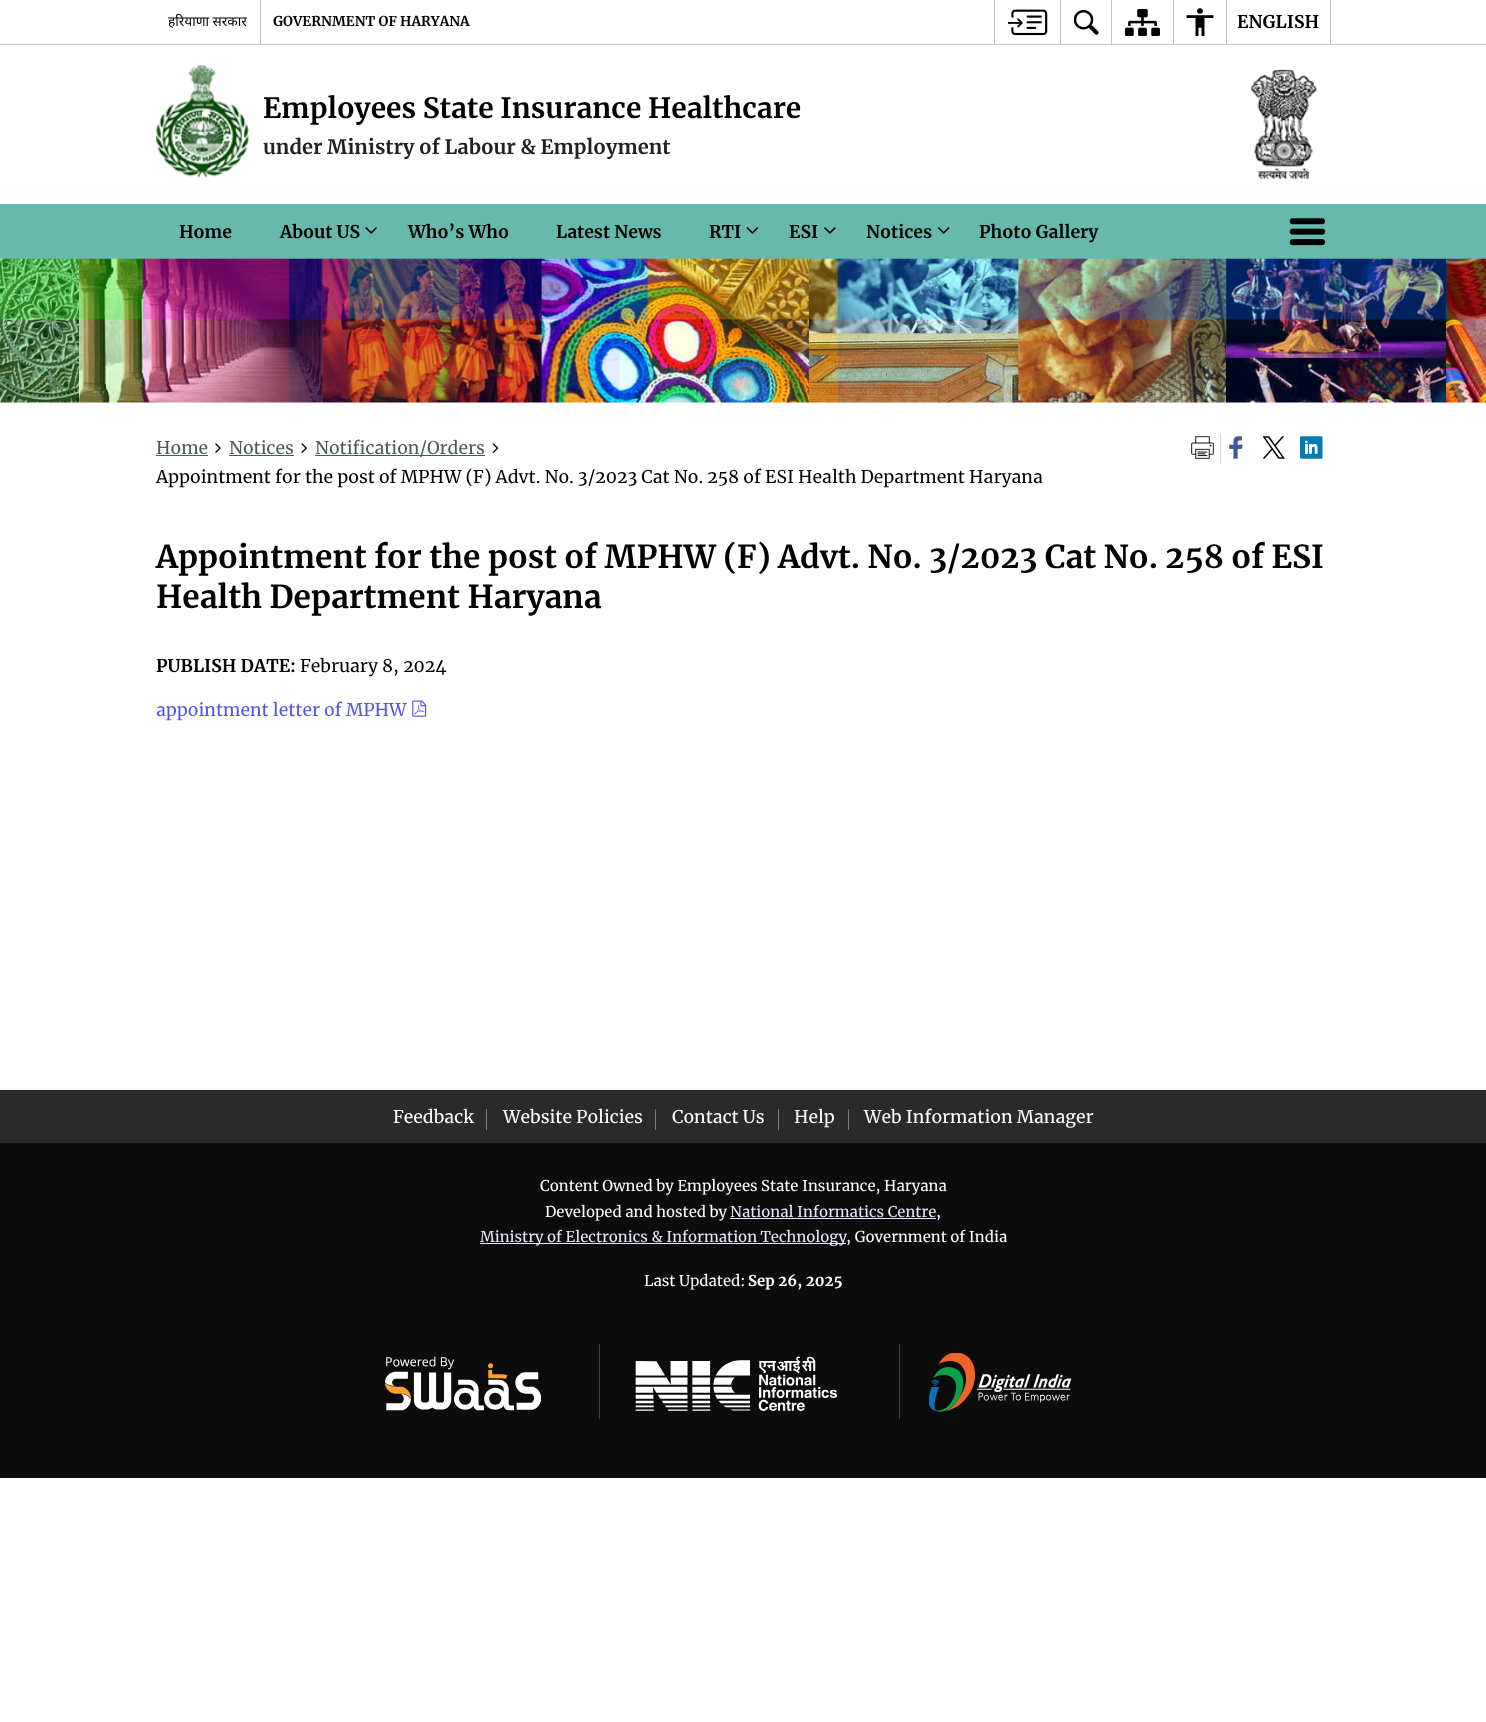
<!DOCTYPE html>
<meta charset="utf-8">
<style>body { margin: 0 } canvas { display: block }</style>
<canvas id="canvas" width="1486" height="1722"></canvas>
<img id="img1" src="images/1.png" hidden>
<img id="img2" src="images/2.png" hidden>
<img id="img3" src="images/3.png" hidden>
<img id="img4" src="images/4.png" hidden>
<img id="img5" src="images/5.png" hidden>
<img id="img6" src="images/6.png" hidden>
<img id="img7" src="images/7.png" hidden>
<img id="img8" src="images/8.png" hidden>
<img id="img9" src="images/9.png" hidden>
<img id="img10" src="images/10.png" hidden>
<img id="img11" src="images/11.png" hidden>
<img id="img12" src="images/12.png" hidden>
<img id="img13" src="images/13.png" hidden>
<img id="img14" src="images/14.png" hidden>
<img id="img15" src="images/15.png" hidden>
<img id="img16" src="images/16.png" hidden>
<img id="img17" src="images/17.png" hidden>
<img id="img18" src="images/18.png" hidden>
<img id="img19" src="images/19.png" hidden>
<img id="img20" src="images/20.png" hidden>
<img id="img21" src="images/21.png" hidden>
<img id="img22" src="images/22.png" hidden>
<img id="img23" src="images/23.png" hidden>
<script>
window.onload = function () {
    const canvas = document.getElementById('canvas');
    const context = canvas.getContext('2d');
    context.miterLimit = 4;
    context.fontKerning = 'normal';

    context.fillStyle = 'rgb(255, 255, 255)';
    context.fillRect(0, 0, 1486, 1722);
    context.fillStyle = 'rgb(194, 192, 193)';
    context.fillRect(0, 44, 1486, 1);
    context.fillRect(260, 0, 1, 44);
    context.fillRect(994, 0, 1, 44);
    context.drawImage(document.getElementById('img1'), 1008, 9, 40, 27);
    context.fillRect(1060, 0, 1, 44);
    context.drawImage(document.getElementById('img2'), 1074, 10, 25, 25);
    context.fillRect(1111, 0, 1, 44);
    context.drawImage(document.getElementById('img3'), 1125, 9, 35, 27);
    context.fillRect(1173, 0, 1, 44);
    context.drawImage(document.getElementById('img4'), 1186, 8, 28, 28);
    context.fillRect(1330, 0, 1, 44);
    context.fillRect(1226, 0, 1, 44);
    context.drawImage(document.getElementById('img5'), 156, 65, 93, 113);
    context.drawImage(document.getElementById('img6'), 1251, 69, 66, 110);
    context.fillStyle = 'rgb(102, 185, 172)';
    context.fillRect(0, 204, 1486, 55);
    context.drawImage(document.getElementById('img7'), 365, 227, 12, 7);
    context.drawImage(document.getElementById('img8'), 746, 227, 13, 7);
    context.drawImage(document.getElementById('img9'), 824, 227, 12, 7);
    context.drawImage(document.getElementById('img10'), 937, 227, 13, 7);
    context.drawImage(document.getElementById('img11'), 1289, 218, 37, 28);
    context.drawImage(document.getElementById('img12'), 0, 258, 1486, 145);
    context.fillStyle = 'rgb(71, 92, 89)';
    context.fillRect(156, 455, 52, 1);
    context.drawImage(document.getElementById('img13'), 215, 443, 6, 10);
    context.fillRect(229, 455, 65, 1);
    context.drawImage(document.getElementById('img14'), 301, 443, 6, 10);
    context.fillRect(315, 455, 170, 1);
    context.drawImage(document.getElementById('img15'), 492, 443, 7, 10);
    context.fillStyle = 'rgb(216, 216, 216)';
    context.fillRect(1220, 434, 1, 30);
    context.drawImage(document.getElementById('img16'), 1191, 436, 23, 23);
    context.drawImage(document.getElementById('img17'), 1229, 436, 14, 23);
    context.drawImage(document.getElementById('img18'), 1263, 436, 22, 23);
    context.drawImage(document.getElementById('img19'), 1300, 436, 23, 23);
    context.drawImage(document.getElementById('img20'), 412, 700, 15, 17);
    context.fillStyle = 'rgb(42, 42, 42)';
    context.fillRect(0, 1090, 1486, 53);
    context.fillStyle = 'rgb(124, 124, 124)';
    context.fillRect(486, 1109, 1, 21);
    context.fillRect(655, 1109, 1, 21);
    context.fillRect(778, 1109, 1, 21);
    context.fillRect(848, 1109, 1, 21);
    context.fillStyle = 'rgb(12, 12, 12)';
    context.fillRect(0, 1143, 1486, 335);
    context.fillStyle = 'rgb(234, 230, 255)';
    context.fillRect(730, 1218, 206, 1);
    context.fillRect(480, 1243, 366, 1);
    context.drawImage(document.getElementById('img21'), 385, 1356, 156, 55);
    context.fillStyle = 'rgb(63, 63, 63)';
    context.fillRect(599, 1344, 1, 75);
    context.drawImage(document.getElementById('img22'), 635, 1356, 202, 55);
    context.fillRect(899, 1344, 1, 75);
    context.drawImage(document.getElementById('img23'), 929, 1353, 143, 59);
    context.font = '13.6px Noto Sans';
    context.fillStyle = 'rgb(0, 0, 0)';
    context.fillText('हरियाणा सरकार', 168, 26);
    context.font = 'bold 13.6px Merriweather';
    context.fillText('GOVERNMENT OF HARYANA', 273, 26);
    context.font = 'bold 17.5px Merriweather';
    context.fillText('ENGLISH', 1237, 28);
    context.font = 'bold 28px Merriweather';
    context.fillText('Employees State Insurance Healthcare', 263, 118);
    context.font = 'bold 20px Merriweather';
    context.fillStyle = 'rgb(34, 34, 34)';
    context.fillText('under Ministry of Labour & Employment', 263, 154);
    context.font = 'bold 17.5px Merriweather';
    context.fillStyle = 'rgb(0, 0, 0)';
    context.fillText('Home', 179, 238);
    context.fillText('About US', 280, 238);
    context.fillText('Who’s Who', 408, 238);
    context.fillText('Latest News', 556, 238);
    context.fillText('RTI', 709, 238);
    context.fillText('ESI', 789, 238);
    context.fillText('Notices', 866, 238);
    context.fillText('Photo Gallery', 979, 238);
    context.font = '17.5px Merriweather';
    context.fillStyle = 'rgb(71, 92, 89)';
    context.fillText('Home', 156, 454);
    context.fillText('Notices', 229, 454);
    context.fillText('Notification/Orders', 315, 454);
    context.fillStyle = 'rgb(0, 0, 0)';
    context.fillText('Appointment for the post of MPHW (F) Advt. No. 3/2023 Cat No. 258 of ESI Health Department Haryana', 156, 483);
    context.font = 'bold 31.5px Merriweather';
    context.fillText('Appointment for the post of MPHW (F) Advt. No. 3/2023 Cat No. 258 of ESI', 156, 568);
    context.fillText('Health Department Haryana', 156, 608);
    context.font = 'bold 17.5px Merriweather';
    context.fillText('PUBLISH DATE:', 156, 672);
    context.font = '17.5px Merriweather';
    context.fillText('February 8, 2024', 300, 672);
    context.fillStyle = 'rgb(83, 83, 234)';
    context.fillText('appointment letter of MPHW', 156, 716);
    context.fillStyle = 'rgb(255, 255, 255)';
    context.fillText('Feedback', 393, 1123);
    context.fillText('Website Policies', 503, 1123);
    context.fillText('Contact Us', 672, 1123);
    context.fillText('Help', 794, 1123);
    context.fillText('Web Information Manager', 864, 1123);
    context.font = '14.9px Merriweather';
    context.fillText('Content Owned by Employees State Insurance, Haryana', 540, 1191);
    context.fillText('Developed and hosted by', 545, 1217);
    context.fillStyle = 'rgb(234, 230, 255)';
    context.fillText('National Informatics Centre', 730, 1217);
    context.fillStyle = 'rgb(255, 255, 255)';
    context.fillText(',', 936, 1217);
    context.fillStyle = 'rgb(234, 230, 255)';
    context.fillText('Ministry of Electronics & Information Technology', 480, 1242);
    context.fillStyle = 'rgb(255, 255, 255)';
    context.fillText(', Government of India', 846, 1242);
    context.fillText('Last Updated:', 644, 1286);
    context.font = 'bold 14.9px Merriweather';
    context.fillText('Sep 26, 2025', 748, 1286);
};
</script>
